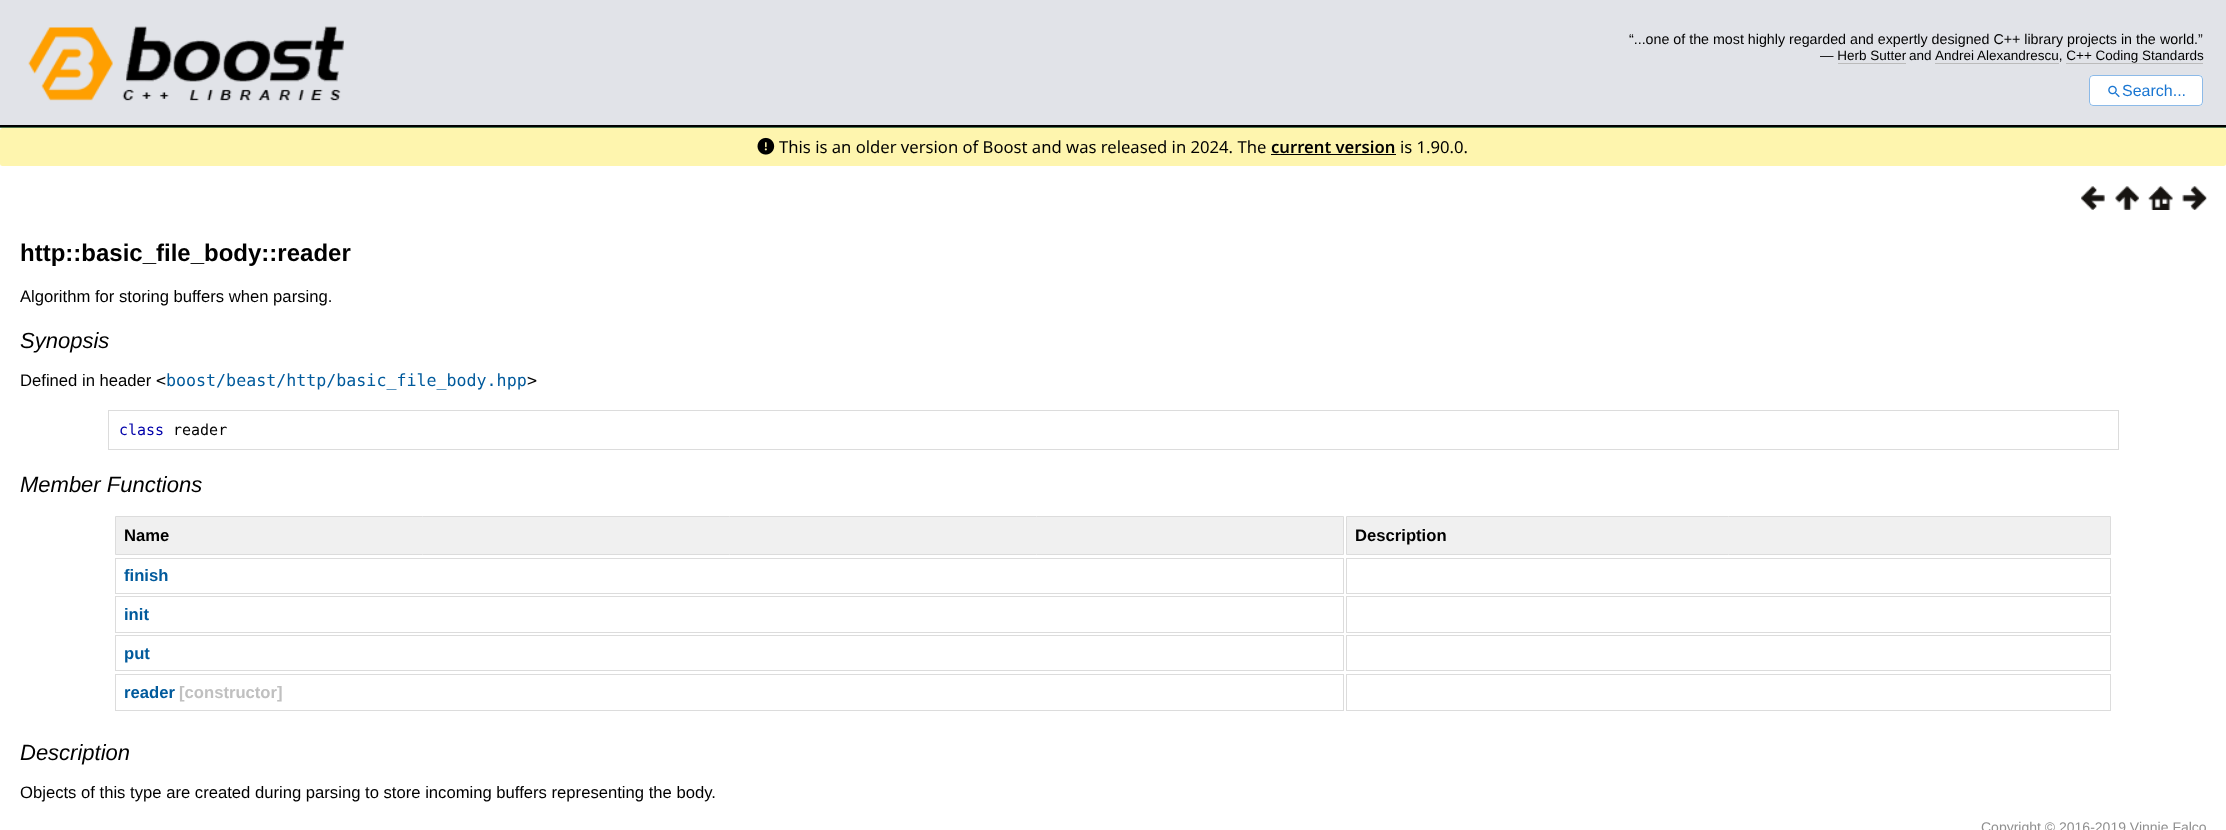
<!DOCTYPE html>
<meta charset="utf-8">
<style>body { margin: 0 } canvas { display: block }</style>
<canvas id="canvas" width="2226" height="830"></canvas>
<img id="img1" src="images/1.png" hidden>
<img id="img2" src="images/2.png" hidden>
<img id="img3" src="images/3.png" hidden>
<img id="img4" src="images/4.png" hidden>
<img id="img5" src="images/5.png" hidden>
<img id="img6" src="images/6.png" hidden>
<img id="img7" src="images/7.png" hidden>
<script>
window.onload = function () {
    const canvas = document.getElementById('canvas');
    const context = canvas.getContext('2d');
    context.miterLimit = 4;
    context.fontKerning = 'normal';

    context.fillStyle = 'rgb(255, 255, 255)';
    context.fillRect(0, 0, 2226, 830);
    context.fillStyle = 'rgb(79, 116, 77)';
    context.fillRect(0, 127, 2226, 1);
    context.fillStyle = 'rgb(225, 227, 232)';
    context.fillRect(0, 0, 2226, 125);
    context.fillStyle = 'rgb(0, 0, 0)';
    context.fillRect(0, 125, 2226, 2);
    context.drawImage(document.getElementById('img1'), 28, 26, 316, 75);
    context.fillStyle = 'rgb(187, 187, 187)';
    context.fillRect(1935, 63, 124, 1);
    context.fillRect(1838, 63, 68, 1);
    context.fillRect(2066, 63, 137, 1);
    context.fillStyle = 'rgb(255, 255, 255)';
    context.beginPath();
    context.roundRect(2089, 75, 114, 31, 4);
    context.fill();
    context.beginPath();
    context.roundRect(2089.5, 75.5, 113, 30, 3.5);
    context.strokeStyle = 'rgba(25, 118, 210, 0.5)';
    context.stroke();
    context.drawImage(document.getElementById('img2'), 2108, 85, 12, 13);
    context.fillStyle = 'rgb(254, 245, 174)';
    context.beginPath();
    context.roundRect(0, 128, 2226, 38, 2.5);
    context.fill();
    context.drawImage(document.getElementById('img3'), 757, 137, 18, 18);
    context.fillStyle = 'rgb(0, 0, 0)';
    context.fillRect(1271, 154, 125, 1);
    context.drawImage(document.getElementById('img4'), 2081, 186, 24, 24);
    context.drawImage(document.getElementById('img5'), 2115, 186, 24, 24);
    context.drawImage(document.getElementById('img6'), 2148, 186, 25, 24);
    context.drawImage(document.getElementById('img7'), 2182, 186, 25, 24);
    context.strokeStyle = 'rgb(220, 220, 220)';
    context.strokeRect(108.5, 410.5, 2010, 39);
    context.fillStyle = 'rgb(240, 240, 240)';
    context.beginPath();
    context.rect(115.5, 516.5, 1228, 38);
    context.fill();
    context.stroke();
    context.beginPath();
    context.rect(1346.5, 516.5, 764, 38);
    context.fill();
    context.stroke();
    context.strokeRect(115.5, 558.5, 1228, 35);
    context.strokeRect(1346.5, 558.5, 764, 35);
    context.strokeRect(115.5, 596.5, 1228, 36);
    context.strokeRect(1346.5, 596.5, 764, 36);
    context.strokeRect(115.5, 635.5, 1228, 35);
    context.strokeRect(1346.5, 635.5, 764, 35);
    context.strokeRect(115.5, 674.5, 1228, 36);
    context.strokeRect(1346.5, 674.5, 764, 36);
    context.font = '14.25px Liberation Sans';
    context.fillStyle = 'rgb(0, 0, 0)';
    context.fillText('“...one of the most highly regarded and expertly designed C++ library projects in the', 1629, 44);
    context.fillText('world.”', 2160, 44);
    context.font = '13.5px Liberation Sans';
    context.fillText('— Herb Sutter', 1820, 60);
    context.fillText('and', 1909, 60);
    context.fillText('Andrei', 1935, 60);
    context.fillText('Alexandrescu, C++ Coding Standards', 1977, 60);
    context.font = '16px Liberation Sans';
    context.fillStyle = 'rgb(25, 118, 210)';
    context.fillText('Search...', 2122, 96);
    context.font = '16.65px Noto Sans';
    context.fillStyle = 'rgb(0, 0, 0)';
    context.fillText('This is an older version of Boost and was released in 2024. The', 779, 153);
    context.font = '600 16.65px Noto Sans';
    context.fillText('current version', 1271, 153);
    context.font = '16.65px Noto Sans';
    context.fillText('is 1.90.0.', 1400, 153);
    context.font = 'bold 24px Liberation Sans';
    context.fillText('http::basic_file_body::reader', 20, 261);
    context.font = '16.65px Liberation Sans';
    context.fillText('Algorithm for storing buffers when parsing.', 20, 302);
    context.font = 'italic 22px Liberation Sans';
    context.fillText('Synopsis', 20, 348);
    context.font = '16.65px Liberation Sans';
    context.fillText('Defined in header', 20, 386);
    context.font = '16.65px DejaVu Sans Mono';
    context.fillText('<', 156, 386);
    context.fillStyle = 'rgb(0, 90, 156)';
    context.fillText('boost/beast/http/basic_file_body.hpp', 166, 386);
    context.fillStyle = 'rgb(0, 0, 0)';
    context.fillText('>', 527, 386);
    context.font = '15px DejaVu Sans Mono';
    context.fillStyle = 'rgb(0, 0, 170)';
    context.fillText('class', 119, 435);
    context.fillStyle = 'rgb(0, 0, 0)';
    context.fillText('reader', 173, 435);
    context.font = 'italic 22px Liberation Sans';
    context.fillText('Member Functions', 20, 492);
    context.font = 'bold 16.65px Liberation Sans';
    context.fillText('Name', 124, 541);
    context.fillText('Description', 1355, 541);
    context.fillStyle = 'rgb(0, 90, 156)';
    context.fillText('finish', 124, 581);
    context.fillText('init', 124, 620);
    context.fillText('put', 124, 659);
    context.fillText('reader', 124, 698);
    context.fillStyle = 'rgb(192, 192, 192)';
    context.fillText('[constructor]', 179, 698);
    context.font = 'italic 22px Liberation Sans';
    context.fillStyle = 'rgb(0, 0, 0)';
    context.fillText('Description', 20, 760);
    context.font = '16.65px Liberation Sans';
    context.fillText('Objects of this type are created during parsing to store incoming buffers representing the body.', 20, 798);
    context.font = '14px Liberation Sans';
    context.fillStyle = 'rgb(143, 143, 143)';
    context.fillText('Copyright © 2016-2019 Vinnie Falco', 1981, 832);
};
</script>
